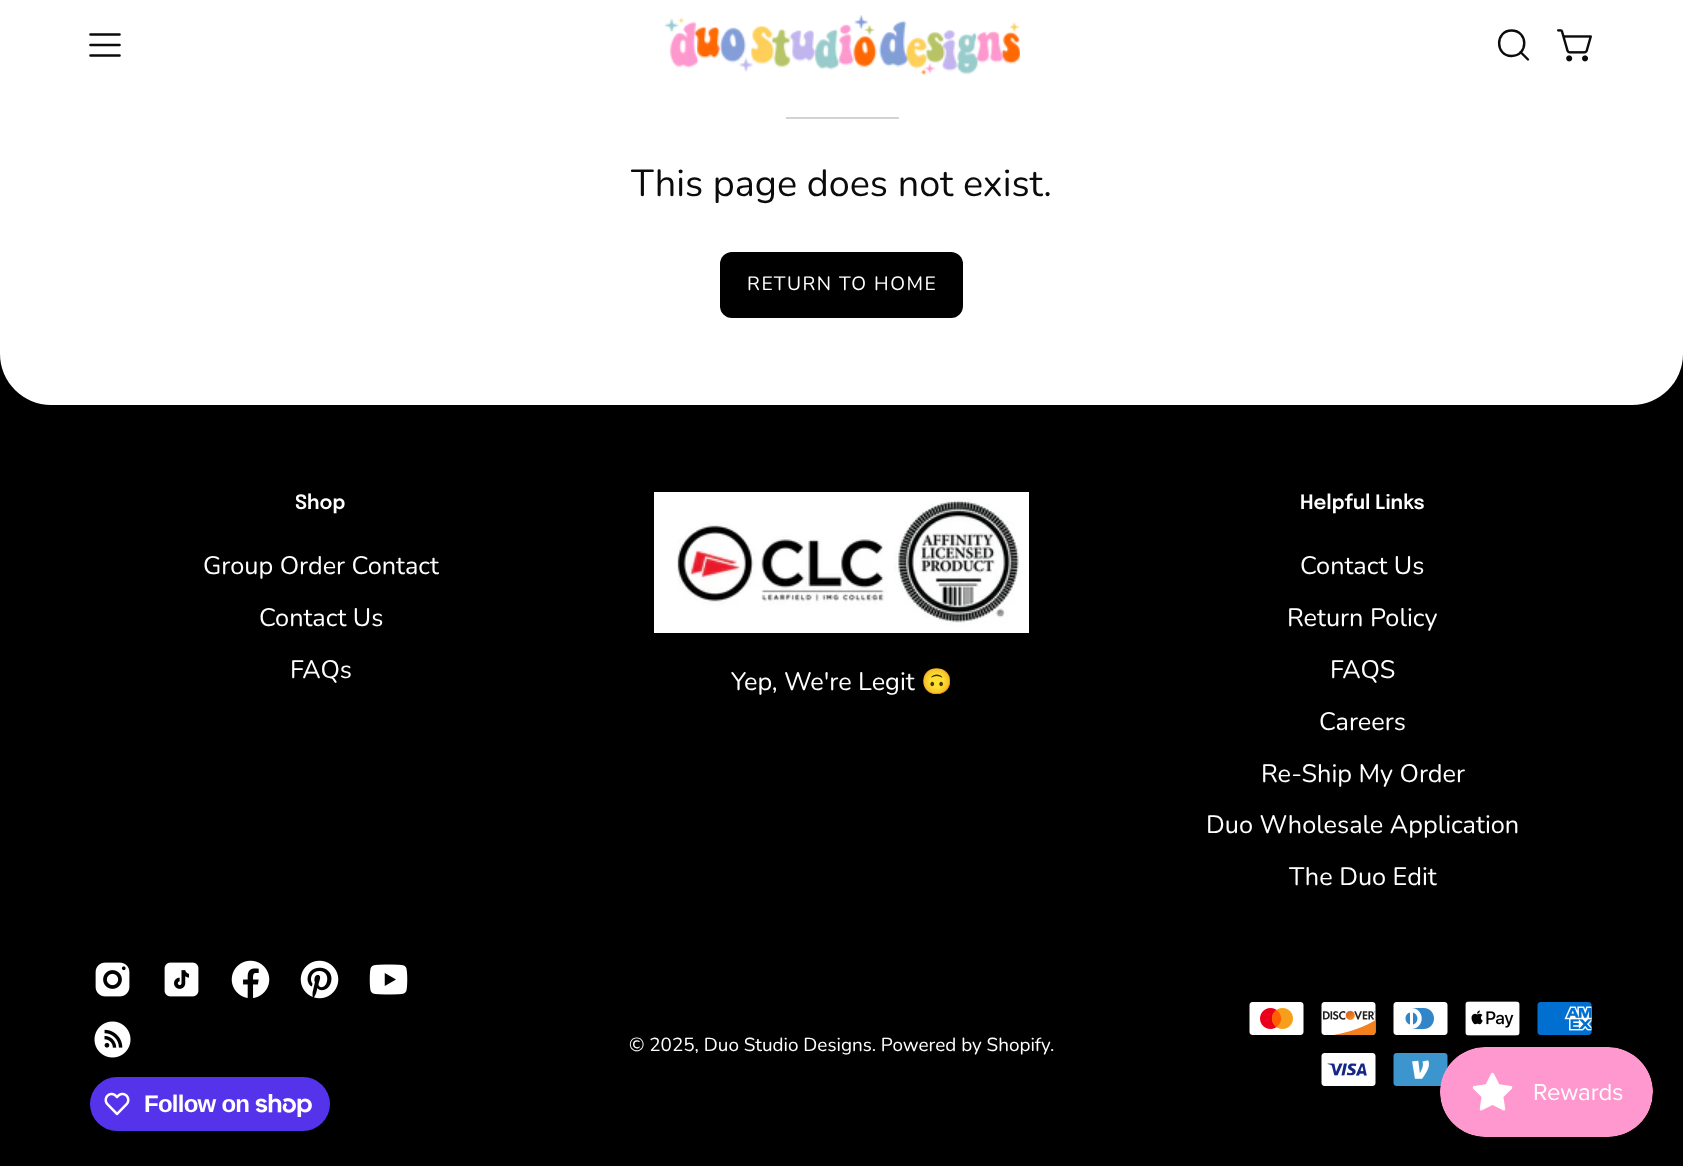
<!DOCTYPE html>
<meta charset="utf-8">
<style>body { margin: 0 } canvas { display: block }</style>
<canvas id="canvas" width="1683" height="1166"></canvas>
<img id="img1" src="images/1.png" hidden>
<img id="img2" src="images/2.png" hidden>
<img id="img3" src="images/3.png" hidden>
<img id="img4" src="images/4.png" hidden>
<img id="img5" src="images/5.png" hidden>
<img id="img6" src="images/6.png" hidden>
<img id="img7" src="images/7.png" hidden>
<img id="img8" src="images/8.png" hidden>
<img id="img9" src="images/9.png" hidden>
<img id="img10" src="images/10.png" hidden>
<img id="img11" src="images/11.png" hidden>
<img id="img12" src="images/12.png" hidden>
<img id="img13" src="images/13.png" hidden>
<img id="img14" src="images/14.png" hidden>
<img id="img15" src="images/15.png" hidden>
<img id="img16" src="images/16.png" hidden>
<img id="img17" src="images/17.png" hidden>
<img id="img18" src="images/18.png" hidden>
<img id="img19" src="images/19.png" hidden>
<img id="img20" src="images/20.png" hidden>
<script>
window.onload = function () {
    const canvas = document.getElementById('canvas');
    const context = canvas.getContext('2d');
    context.miterLimit = 4;
    context.fontKerning = 'normal';

    context.fillStyle = 'rgb(0, 0, 0)';
    context.fillRect(0, 0, 1683, 1166);
    context.fillStyle = 'rgb(255, 255, 255)';
    context.beginPath();
    context.moveTo(0, -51);
    context.lineTo(1683, -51);
    context.lineTo(1683, 354);
    context.bezierCurveTo(1683, 382, 1660, 405, 1632, 405);
    context.lineTo(51, 405);
    context.bezierCurveTo(23, 405, 0, 382, 0, 354);
    context.closePath();
    context.fill();
    context.beginPath();
    context.moveTo(90.5, 45);
    context.lineTo(119.5, 45);
    context.moveTo(90.5, 34.5);
    context.lineTo(119.5, 34.5);
    context.moveTo(90.5, 55.5);
    context.lineTo(119.5, 55.5);
    context.strokeStyle = 'rgb(11, 11, 11)';
    context.lineWidth = 2.6;
    context.lineCap = 'round';
    context.lineJoin = 'round';
    context.stroke();
    context.drawImage(document.getElementById('img1'), 664, 15, 356, 60);
    context.beginPath();
    context.moveTo(1511.5, 56);
    context.bezierCurveTo(1528.5, 56, 1528.5, 30.5, 1511.5, 30.5);
    context.bezierCurveTo(1495, 30.5, 1495, 56, 1511.5, 56);
    context.closePath();
    context.moveTo(1520.5, 52);
    context.lineTo(1528, 59.5);
    context.lineWidth = 2.4;
    context.stroke();
    context.drawImage(document.getElementById('img2'), 1557, 29, 35, 33);
    context.fillStyle = 'rgb(211, 211, 211)';
    context.fillRect(786, 117, 113, 2);
    context.fillStyle = 'rgb(0, 0, 0)';
    context.beginPath();
    context.roundRect(720, 252, 243, 66, 12);
    context.fill();
    context.drawImage(document.getElementById('img3'), 654, 492, 375, 141);
    context.drawImage(document.getElementById('img4'), 1249, 1002, 55, 33);
    context.drawImage(document.getElementById('img5'), 1321, 1002, 55, 33);
    context.drawImage(document.getElementById('img6'), 1393, 1002, 55, 33);
    context.drawImage(document.getElementById('img7'), 1465, 1001, 55, 35);
    context.drawImage(document.getElementById('img8'), 1537, 1002, 55, 33);
    context.drawImage(document.getElementById('img9'), 1464, 1052, 1, 1);
    context.drawImage(document.getElementById('img10'), 1321, 1053, 55, 33);
    context.drawImage(document.getElementById('img11'), 1393, 1053, 55, 33);
    context.drawImage(document.getElementById('img12'), 95, 962, 35, 35);
    context.drawImage(document.getElementById('img13'), 164, 962, 35, 35);
    context.drawImage(document.getElementById('img14'), 231, 960, 39, 38);
    context.drawImage(document.getElementById('img15'), 300, 960, 39, 39);
    context.drawImage(document.getElementById('img16'), 369, 964, 39, 31);
    context.drawImage(document.getElementById('img17'), 94, 1021, 37, 37);
    context.fillStyle = 'rgb(84, 51, 235)';
    context.beginPath();
    context.roundRect(90, 1077, 240, 54, 27);
    context.fill();
    context.drawImage(document.getElementById('img18'), 104, 1092, 26, 24);
    context.drawImage(document.getElementById('img19'), 255, 1094, 57, 23);
    context.drawImage(document.getElementById('img20'), 1440, 1047, 213, 90);
    context.font = '37.75px Nunito';
    context.fillStyle = 'rgb(11, 11, 11)';
    context.fillText('This page does not exist.', 631, 196);
    context.letterSpacing = '1.5px';
    context.font = '19.25px Nunito';
    context.fillStyle = 'rgb(255, 255, 255)';
    context.fillText('RETURN TO HOME', 747, 290);
    context.letterSpacing = '0px';
    context.font = '600 19.75px Epilogue';
    context.fillText('Shop', 295, 509);
    context.font = '25.25px Nunito';
    context.fillText('Group Order Contact', 203, 574);
    context.fillText('Contact Us', 259, 626);
    context.fillText('FAQs', 290, 678);
    context.fillText('Yep, We\'re Legit', 731, 690);
    context.font = '25.25px Noto Color Emoji';
    context.fillText('🙃', 921, 690);
    context.font = '600 19.75px Epilogue';
    context.fillText('Helpful Links', 1300, 509);
    context.font = '25.25px Nunito';
    context.fillText('Contact Us', 1300, 574);
    context.fillText('Return Policy', 1287, 626);
    context.fillText('FAQS', 1330, 678);
    context.fillText('Careers', 1319, 730);
    context.fillText('Re-Ship My Order', 1261, 782);
    context.fillText('Duo Wholesale Application', 1206, 833);
    context.fillText('The Duo Edit', 1289, 885);
    context.font = '18.9px Nunito';
    context.fillText('© 2025, Duo Studio Designs. Powered by Shopify', 629, 1051);
    context.fillText('.', 1050, 1051);
    context.letterSpacing = '-0.75px';
    context.font = 'bold 24px Liberation Sans';
    context.fillText('Follow on', 144, 1112);
};
</script>
